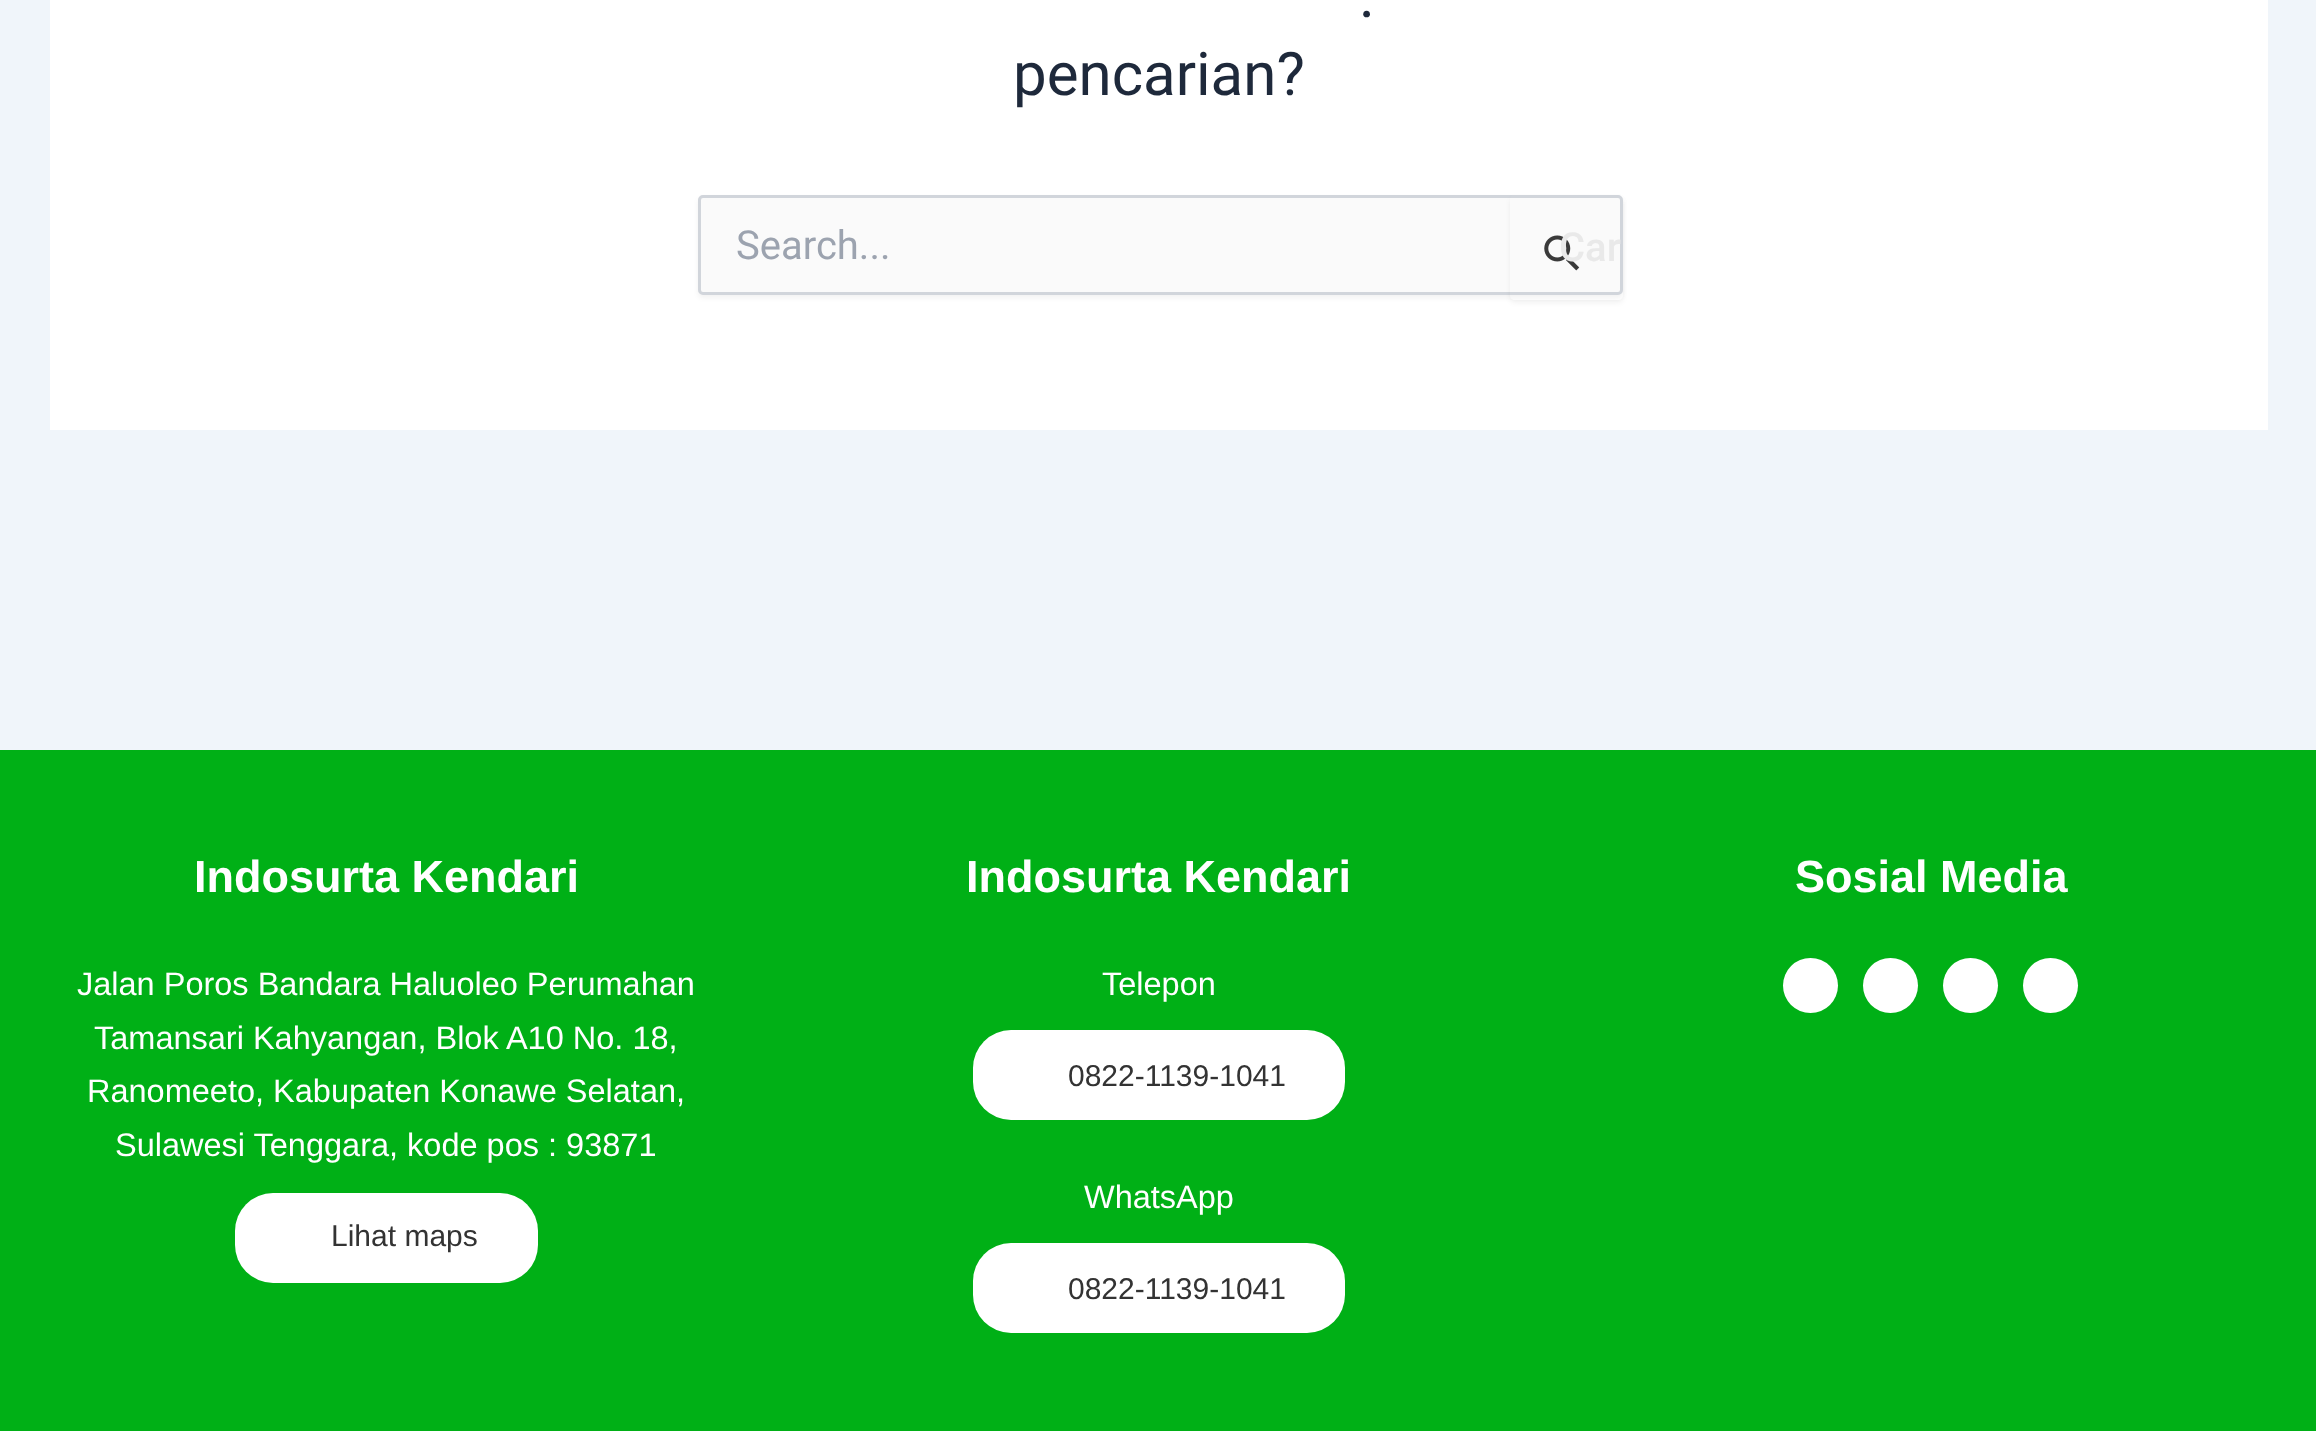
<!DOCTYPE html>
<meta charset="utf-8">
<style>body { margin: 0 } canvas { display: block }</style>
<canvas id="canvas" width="2316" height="1431"></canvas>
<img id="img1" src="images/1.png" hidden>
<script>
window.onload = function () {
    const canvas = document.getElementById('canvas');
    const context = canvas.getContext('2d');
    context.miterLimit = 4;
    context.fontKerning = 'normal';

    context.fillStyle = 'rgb(240, 245, 250)';
    context.fillRect(0, 0, 2316, 1431);
    context.fillStyle = 'rgb(255, 255, 255)';
    context.fillRect(50, 0, 2218, 430);
    context.fillStyle = 'rgba(0, 0, 0, 0.05)';
    context.filter = 'blur(2.5px)';
    context.beginPath();
    context.roundRect(698, 198, 925, 100, 5);
    context.fill();
    context.filter = 'none';
    context.fillStyle = 'rgb(250, 250, 250)';
    context.beginPath();
    context.roundRect(699.5, 196.5, 922, 97, 3.5);
    context.fill();
    context.strokeStyle = 'rgb(209, 213, 219)';
    context.lineWidth = 3;
    context.stroke();
    context.drawImage(document.getElementById('img1'), 1544, 235, 36, 36);
    context.save();
    context.beginPath();
    context.moveTo(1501, 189);
    context.lineTo(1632, 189);
    context.lineTo(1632, 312);
    context.lineTo(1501, 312);
    context.closePath();
    context.moveTo(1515, 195);
    context.lineTo(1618, 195);
    context.bezierCurveTo(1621, 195, 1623, 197, 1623, 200);
    context.lineTo(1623, 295);
    context.bezierCurveTo(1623, 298, 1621, 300, 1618, 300);
    context.lineTo(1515, 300);
    context.bezierCurveTo(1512, 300, 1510, 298, 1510, 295);
    context.lineTo(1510, 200);
    context.bezierCurveTo(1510, 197, 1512, 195, 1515, 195);
    context.closePath();
    context.clip('evenodd');
    context.fillStyle = 'rgba(0, 0, 0, 0.05)';
    context.filter = 'blur(2.5px)';
    context.beginPath();
    context.roundRect(1510, 198, 113, 105, 5);
    context.fill();
    context.filter = 'none';
    context.restore();
    context.fillStyle = 'rgb(0, 176, 22)';
    context.fillRect(0, 750, 2316, 681);
    context.fillStyle = 'rgb(255, 255, 255)';
    context.beginPath();
    context.roundRect(235, 1193, 303, 90, 38);
    context.fill();
    context.beginPath();
    context.roundRect(973, 1030, 372, 90, 38);
    context.fill();
    context.beginPath();
    context.roundRect(973, 1243, 372, 90, 38);
    context.fill();
    context.beginPath();
    context.arc(1810.5, 985.5, 27.5, 0, 2 * Math.PI);
    context.fill();
    context.beginPath();
    context.arc(1890.5, 985.5, 27.5, 0, 2 * Math.PI);
    context.fill();
    context.beginPath();
    context.arc(1970.5, 985.5, 27.5, 0, 2 * Math.PI);
    context.fill();
    context.beginPath();
    context.arc(2050.5, 985.5, 27.5, 0, 2 * Math.PI);
    context.fill();
    context.font = '60px Roboto';
    context.fillStyle = 'rgb(30, 41, 59)';
    context.fillText('.', 1359, 17);
    context.fillText('pencarian?', 1013, 95);
    context.font = '40px Roboto';
    context.fillStyle = 'rgb(156, 163, 175)';
    context.fillText('Search...', 736, 259);
    context.font = '500 40px Roboto';
    context.fillStyle = 'rgb(233, 233, 233)';
    context.fillText('Car', 1559, 261);
    context.font = 'bold 45px Liberation Sans';
    context.fillStyle = 'rgb(255, 255, 255)';
    context.fillText('Indosurta Kendari', 194, 892);
    context.font = '32.5px Liberation Sans';
    context.fillText('Jalan Poros Bandara Haluoleo Perumahan', 77, 995);
    context.fillText('Tamansari Kahyangan, Blok A10 No. 18,', 94, 1049);
    context.fillText('Ranomeeto, Kabupaten Konawe Selatan,', 87, 1102);
    context.fillText('Sulawesi Tenggara, kode pos : 93871', 115, 1156);
    context.font = '30px Liberation Sans';
    context.fillStyle = 'rgb(51, 51, 51)';
    context.fillText('Lihat maps', 331, 1246);
    context.font = 'bold 45px Liberation Sans';
    context.fillStyle = 'rgb(255, 255, 255)';
    context.fillText('Indosurta Kendari', 966, 892);
    context.font = '32.5px Liberation Sans';
    context.fillText('Telepon', 1102, 995);
    context.font = '30px Liberation Sans';
    context.fillStyle = 'rgb(51, 51, 51)';
    context.fillText('0822-1139-1041', 1068, 1086);
    context.font = '32.5px Liberation Sans';
    context.fillStyle = 'rgb(255, 255, 255)';
    context.fillText('WhatsApp', 1084, 1208);
    context.font = '30px Liberation Sans';
    context.fillStyle = 'rgb(51, 51, 51)';
    context.fillText('0822-1139-1041', 1068, 1299);
    context.font = 'bold 45px Liberation Sans';
    context.fillStyle = 'rgb(255, 255, 255)';
    context.fillText('Sosial Media', 1795, 892);
};
</script>
